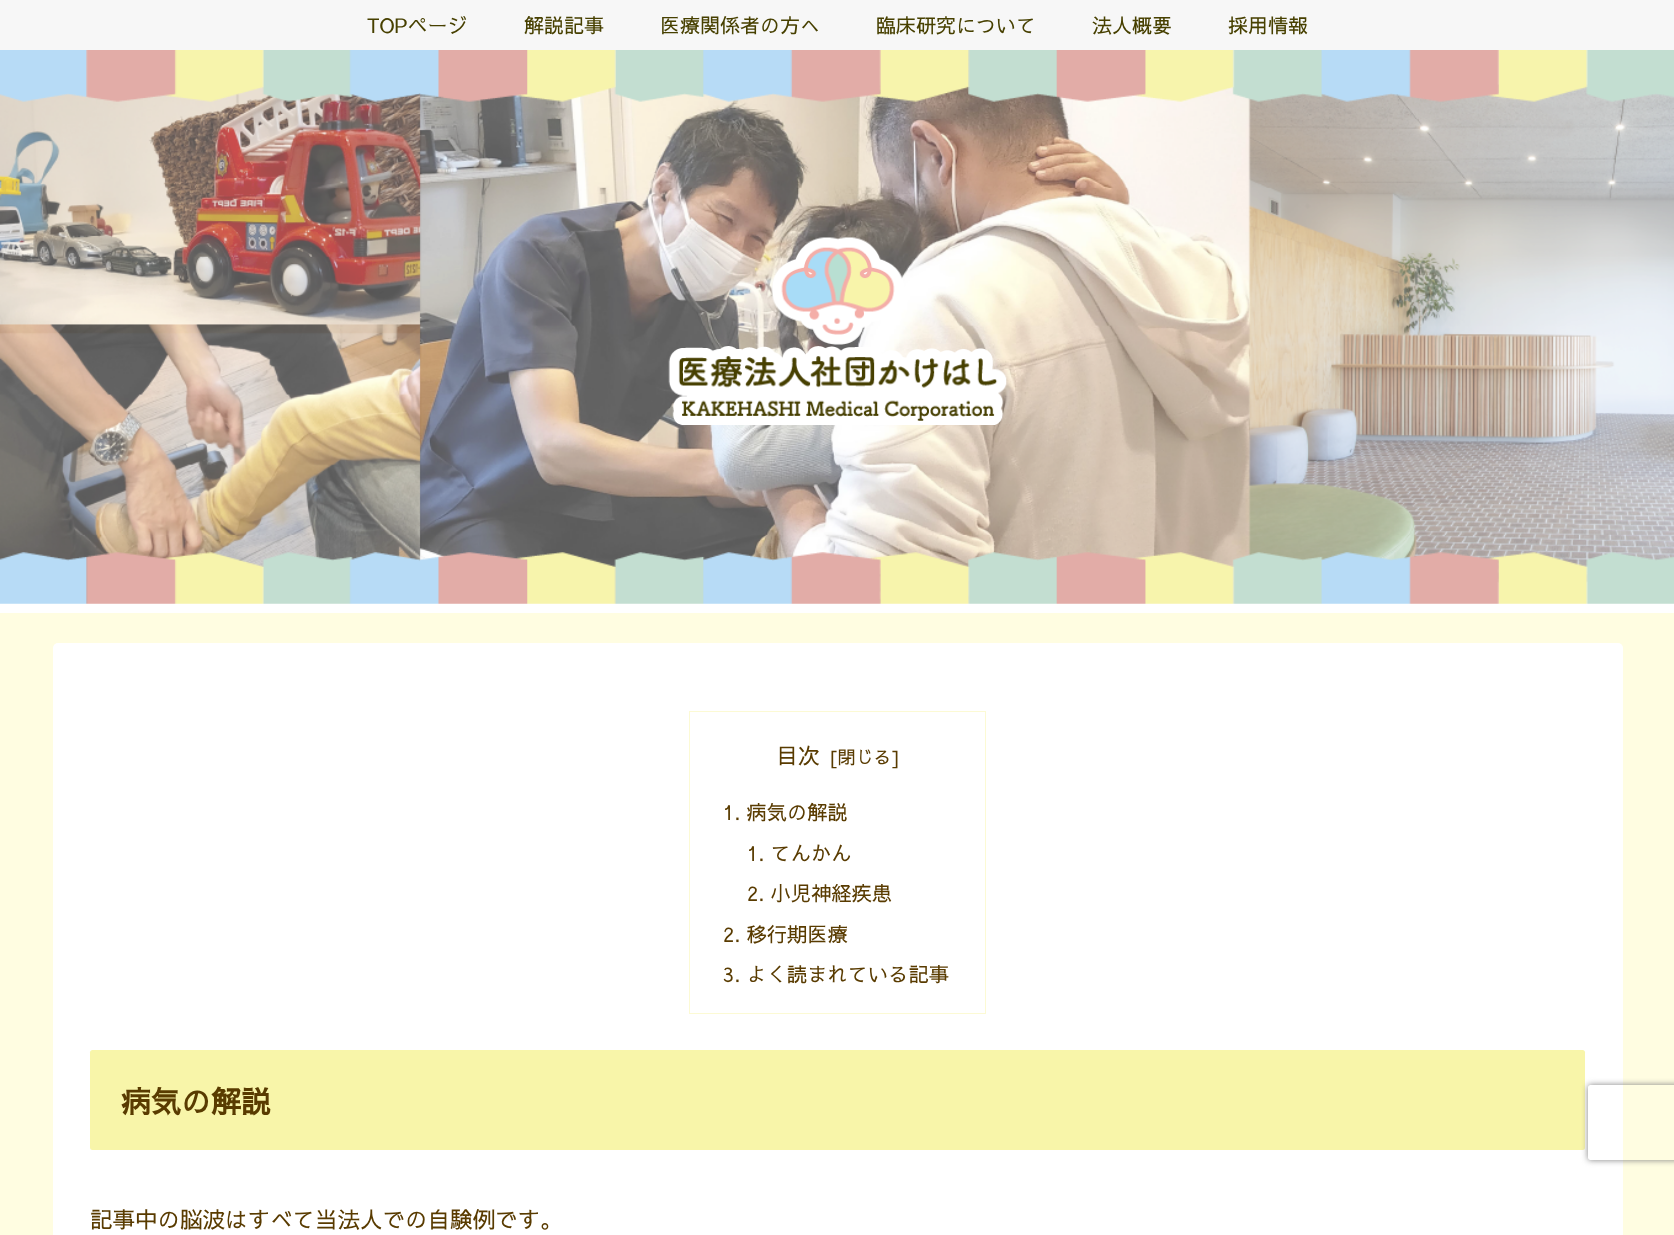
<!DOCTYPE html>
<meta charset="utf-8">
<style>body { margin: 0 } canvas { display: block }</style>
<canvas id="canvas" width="1674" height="1235"></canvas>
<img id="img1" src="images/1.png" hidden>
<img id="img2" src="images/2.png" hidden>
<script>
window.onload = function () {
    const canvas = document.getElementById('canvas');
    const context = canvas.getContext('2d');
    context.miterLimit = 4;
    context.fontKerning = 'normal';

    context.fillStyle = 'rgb(255, 253, 225)';
    context.fillRect(0, 0, 1674, 1235);
    context.fillStyle = 'rgb(247, 247, 247)';
    context.fillRect(0, 0, 1674, 50);
    context.fillStyle = 'rgb(255, 255, 255)';
    context.fillRect(0, 50, 1674, 563);
    context.drawImage(document.getElementById('img1'), 0, 50, 1674, 554);
    context.drawImage(document.getElementById('img2'), 668, 237, 339, 188);
    context.beginPath();
    context.roundRect(53, 643, 1570, 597, 5);
    context.fill();
    context.strokeStyle = 'rgb(252, 250, 212)';
    context.strokeRect(689.5, 711.5, 296, 302);
    context.fillStyle = 'rgb(248, 245, 169)';
    context.beginPath();
    context.roundRect(90, 1050, 1495, 100, 2.5);
    context.fill();
    context.save();
    context.beginPath();
    context.moveTo(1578, 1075);
    context.lineTo(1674, 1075);
    context.lineTo(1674, 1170);
    context.lineTo(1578, 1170);
    context.closePath();
    context.moveTo(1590.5, 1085);
    context.lineTo(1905.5, 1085);
    context.bezierCurveTo(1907, 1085, 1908, 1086, 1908, 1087.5);
    context.lineTo(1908, 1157.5);
    context.bezierCurveTo(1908, 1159, 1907, 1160, 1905.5, 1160);
    context.lineTo(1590.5, 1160);
    context.bezierCurveTo(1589, 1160, 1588, 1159, 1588, 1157.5);
    context.lineTo(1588, 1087.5);
    context.bezierCurveTo(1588, 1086, 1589, 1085, 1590.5, 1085);
    context.closePath();
    context.clip('evenodd');
    context.fillStyle = 'rgb(128, 128, 128)';
    context.filter = 'blur(3px)';
    context.beginPath();
    context.roundRect(1588, 1085, 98, 75, 2.5);
    context.fill();
    context.filter = 'none';
    context.restore();
    context.font = '20px Sawarabi Gothic';
    context.fillStyle = 'rgb(71, 64, 0)';
    context.fillText('TOPページ', 367, 33);
    context.fillText('解説記事', 524, 33);
    context.fillText('医療関係者の方へ', 660, 33);
    context.fillText('臨床研究について', 876, 33);
    context.fillText('法人概要', 1092, 33);
    context.fillText('採用情報', 1228, 33);
    context.font = '22px Sawarabi Gothic';
    context.fillStyle = 'rgb(89, 59, 0)';
    context.fillText('目次', 776, 764);
    context.font = '18px Sawarabi Gothic';
    context.fillText('[閉じる]', 829, 764);
    context.font = '20.25px Sawarabi Gothic';
    context.fillText('1. 病気の解説', 723, 820);
    context.fillText('1. てんかん', 747, 861);
    context.fillText('2. 小児神経疾患', 747, 901);
    context.fillText('2. 移行期医療', 723, 942);
    context.fillText('3. よく読まれている記事', 723, 982);
    context.font = 'bold 30px Sawarabi Gothic';
    context.fillText('病気の解説', 121, 1113);
    context.font = '22.5px Sawarabi Gothic';
    context.fillText('記事中の脳波はすべて当法人での自験例です。', 90, 1228);
};
</script>
